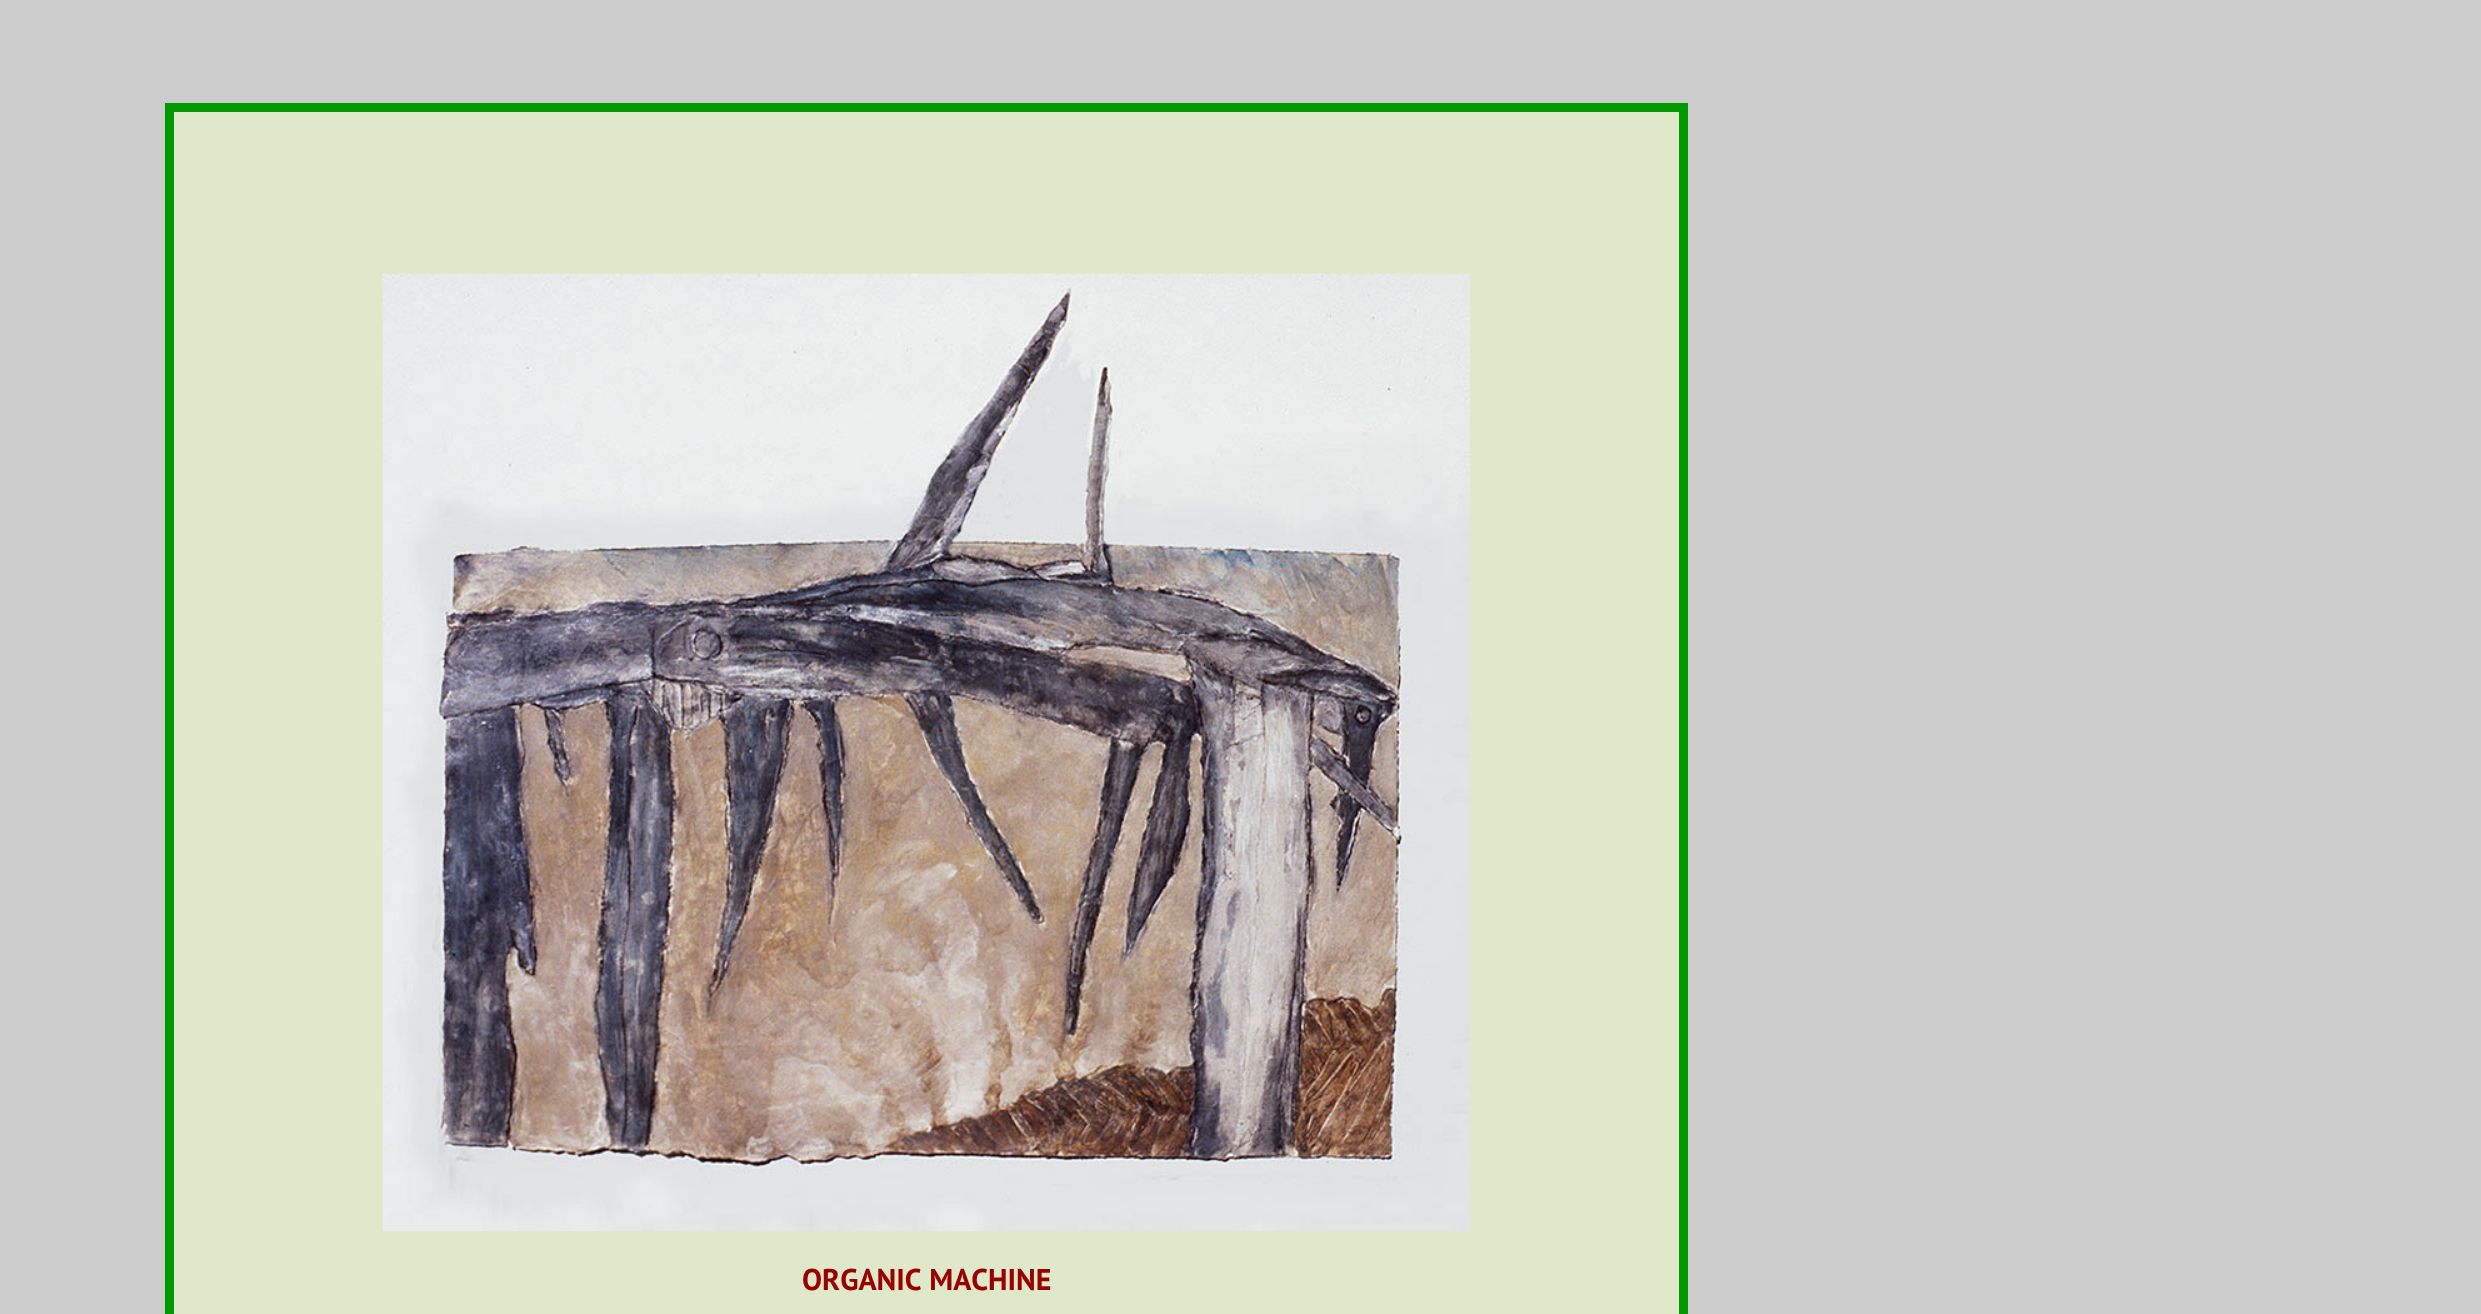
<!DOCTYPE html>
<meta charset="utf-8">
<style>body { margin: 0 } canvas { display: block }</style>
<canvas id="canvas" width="2481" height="1314"></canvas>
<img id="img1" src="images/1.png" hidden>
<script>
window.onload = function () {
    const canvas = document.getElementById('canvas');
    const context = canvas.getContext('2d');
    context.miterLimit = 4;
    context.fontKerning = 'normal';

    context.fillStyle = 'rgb(204, 204, 204)';
    context.fillRect(0, 0, 2481, 1314);
    context.fillStyle = 'rgb(223, 232, 200)';
    context.beginPath();
    context.rect(169.5, 107.5, 1514, 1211);
    context.fill();
    context.strokeStyle = 'rgb(0, 153, 0)';
    context.lineWidth = 9;
    context.stroke();
    context.drawImage(document.getElementById('img1'), 382, 273, 1088, 959);
    context.font = 'bold 30px PT Sans';
    context.fillStyle = 'rgb(153, 0, 0)';
    context.fillText('ORGANIC MACHINE', 802, 1290);
};
</script>
